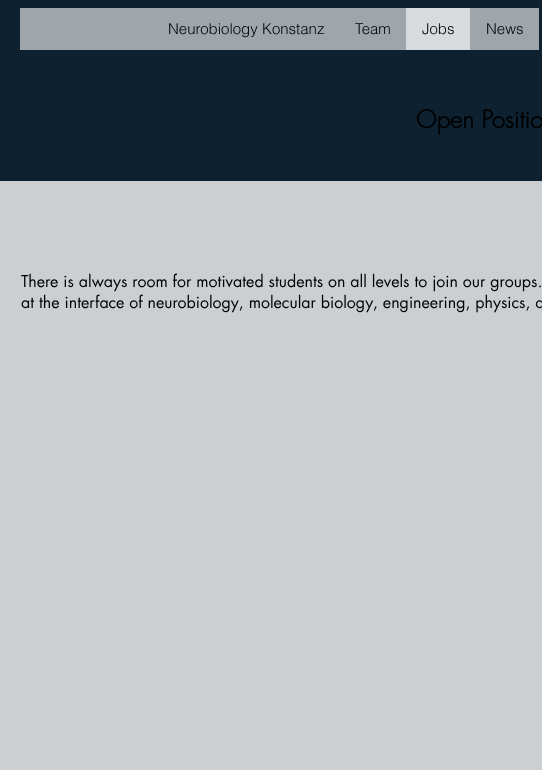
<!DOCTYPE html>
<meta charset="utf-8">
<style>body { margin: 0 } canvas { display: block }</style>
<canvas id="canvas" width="542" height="770"></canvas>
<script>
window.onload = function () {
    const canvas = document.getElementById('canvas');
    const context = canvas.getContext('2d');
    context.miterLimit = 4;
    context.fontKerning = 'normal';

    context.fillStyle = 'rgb(13, 33, 48)';
    context.fillRect(0, 0, 542, 770);
    context.fillStyle = 'rgb(158, 166, 172)';
    context.fillRect(20, 8, 519, 42);
    context.fillStyle = 'rgb(216, 219, 222)';
    context.fillRect(406, 8, 64, 42);
    context.fillStyle = 'rgb(203, 207, 210)';
    context.fillRect(0, 181, 542, 589);
    context.font = '300 15px helvetica';
    context.fillStyle = 'rgb(0, 0, 0)';
    context.fillText('Neurobiology Konstanz', 168, 34);
    context.fillText('Team', 355, 34);
    context.fillText('Jobs', 422, 34);
    context.fillText('News', 486, 34);
    context.font = 'bold 24px futura';
    context.fillText('Open Positio', 416, 128);
    context.font = '16px futura';
    context.fillText('There is always room for motivated students on all levels to join our groups.', 21, 287);
    context.fillText('at the interface of neurobiology, molecular biology, engineering, physics, a', 21, 308);
};
</script>
